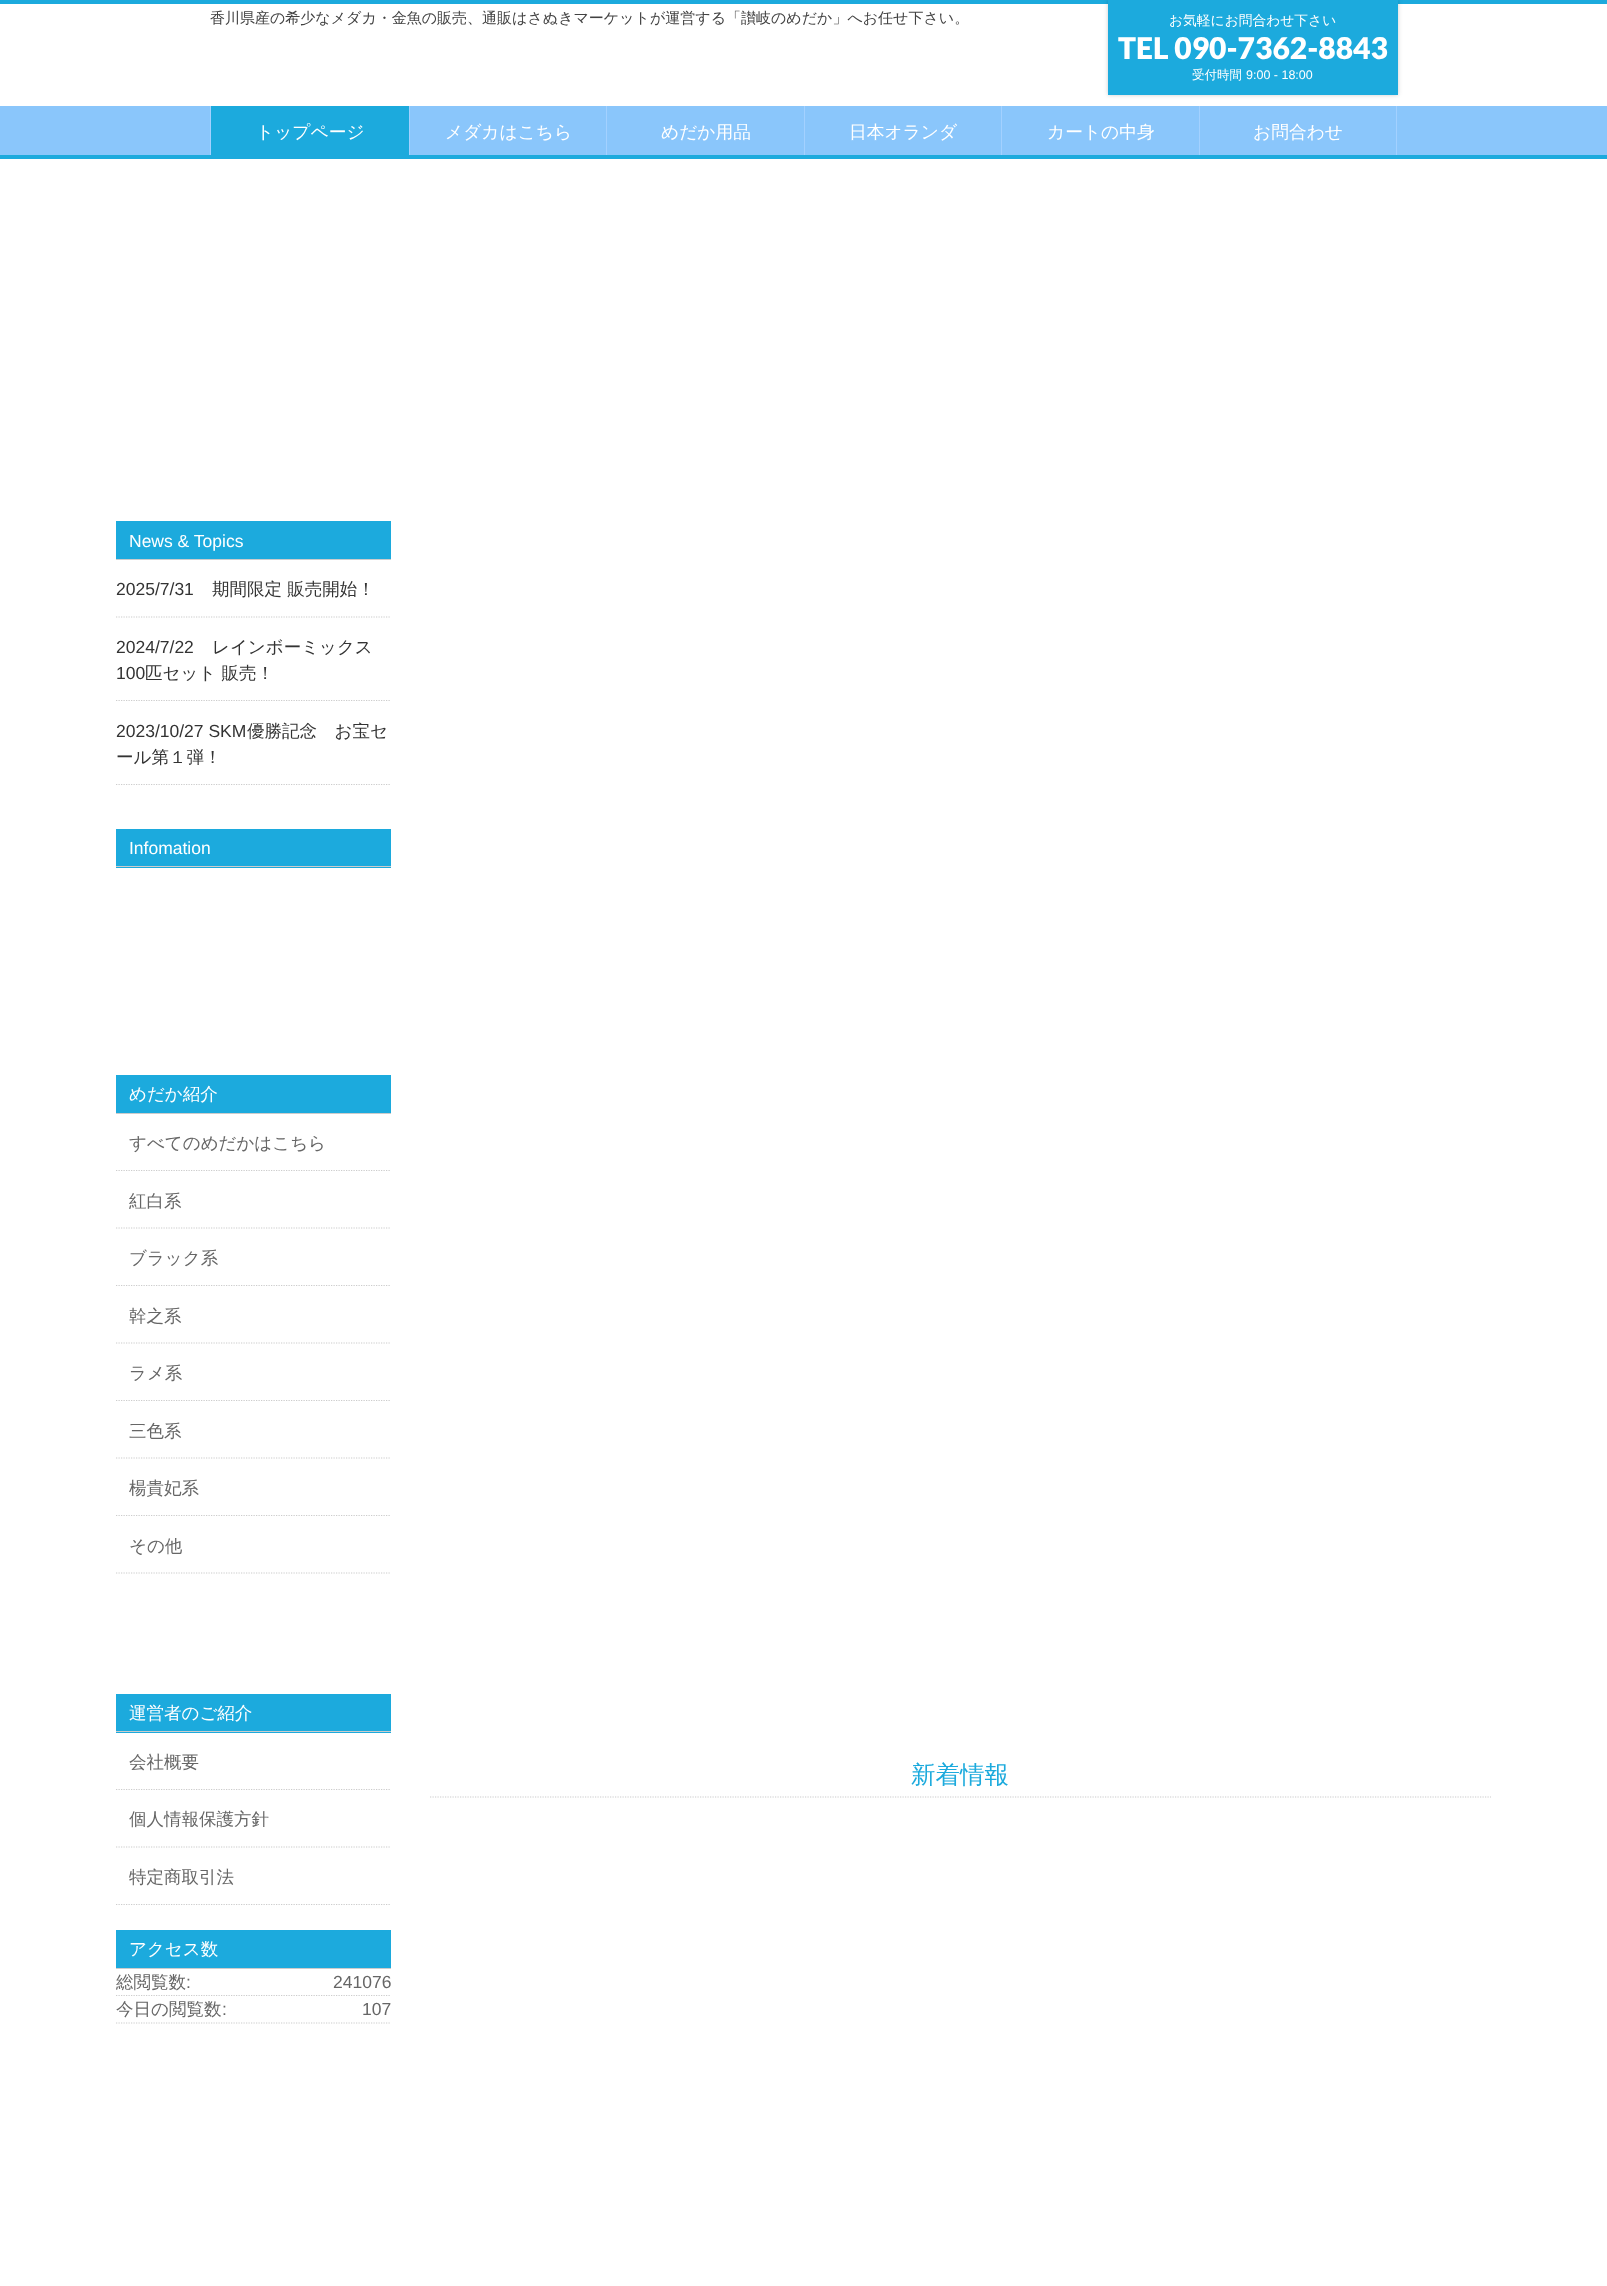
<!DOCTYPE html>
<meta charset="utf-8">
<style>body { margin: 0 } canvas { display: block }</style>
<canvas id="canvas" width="1607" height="2286"></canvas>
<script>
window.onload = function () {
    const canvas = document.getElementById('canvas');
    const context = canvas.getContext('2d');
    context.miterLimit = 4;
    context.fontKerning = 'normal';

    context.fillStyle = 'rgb(255, 255, 255)';
    context.fillRect(0, 0, 1607, 2286);
    context.fillStyle = 'rgb(28, 170, 221)';
    context.fillRect(0, 0, 1607, 4);
    context.fillStyle = 'rgba(0, 0, 0, 0.2)';
    context.filter = 'blur(2px)';
    context.beginPath();
    context.rect(1108, 0, 290, 95);
    context.fill();
    context.filter = 'none';
    context.fillStyle = 'rgb(28, 170, 221)';
    context.fillRect(1108, 0, 290, 95);
    context.fillStyle = 'rgb(138, 198, 251)';
    context.fillRect(0, 106, 1607, 49);
    context.fillStyle = 'rgb(28, 170, 221)';
    context.fillRect(0, 155, 1607, 4);
    context.fillStyle = 'rgb(163, 209, 255)';
    context.fillRect(210, 106, 1, 49);
    context.fillStyle = 'rgb(28, 170, 221)';
    context.fillRect(211, 106, 198, 49);
    context.fillStyle = 'rgb(163, 209, 255)';
    context.fillRect(409, 106, 1, 49);
    context.fillRect(606, 106, 1, 49);
    context.fillRect(804, 106, 1, 49);
    context.fillRect(1001, 106, 1, 49);
    context.fillRect(1199, 106, 1, 49);
    context.fillRect(1396, 106, 1, 49);
    context.fillStyle = 'rgb(28, 170, 221)';
    context.fillRect(116, 521, 275, 38);
    context.fillStyle = 'rgb(204, 204, 204)';
    context.fillRect(116, 559, 275, 1);
    context.beginPath();
    context.moveTo(116, 617);
    context.lineTo(391, 617);
    context.strokeStyle = 'rgb(204, 204, 204)';
    context.lineWidth = 1.2;
    context.setLineDash([1.25, 1.25]);
    context.stroke();
    context.beginPath();
    context.moveTo(116, 700.5);
    context.lineTo(391, 700.5);
    context.stroke();
    context.beginPath();
    context.moveTo(116, 784.5);
    context.lineTo(391, 784.5);
    context.stroke();
    context.fillStyle = 'rgb(28, 170, 221)';
    context.fillRect(116, 829, 275, 39);
    context.fillStyle = 'rgb(204, 204, 204)';
    context.fillRect(116, 866, 275, 1);
    context.fillStyle = 'rgb(28, 170, 221)';
    context.fillRect(116, 1075, 275, 38);
    context.fillStyle = 'rgb(204, 204, 204)';
    context.fillRect(116, 1113, 275, 1);
    context.beginPath();
    context.moveTo(116, 1170.5);
    context.lineTo(391, 1170.5);
    context.stroke();
    context.beginPath();
    context.moveTo(116, 1228);
    context.lineTo(391, 1228);
    context.stroke();
    context.beginPath();
    context.moveTo(116, 1285.5);
    context.lineTo(391, 1285.5);
    context.stroke();
    context.beginPath();
    context.moveTo(116, 1343);
    context.lineTo(391, 1343);
    context.stroke();
    context.beginPath();
    context.moveTo(116, 1400.5);
    context.lineTo(391, 1400.5);
    context.stroke();
    context.beginPath();
    context.moveTo(116, 1458);
    context.lineTo(391, 1458);
    context.stroke();
    context.beginPath();
    context.moveTo(116, 1515.5);
    context.lineTo(391, 1515.5);
    context.stroke();
    context.beginPath();
    context.moveTo(116, 1573);
    context.lineTo(391, 1573);
    context.stroke();
    context.fillStyle = 'rgb(28, 170, 221)';
    context.fillRect(116, 1694, 275, 39);
    context.fillStyle = 'rgb(204, 204, 204)';
    context.fillRect(116, 1731, 275, 1);
    context.beginPath();
    context.moveTo(116, 1789.5);
    context.lineTo(391, 1789.5);
    context.stroke();
    context.beginPath();
    context.moveTo(116, 1847);
    context.lineTo(391, 1847);
    context.stroke();
    context.beginPath();
    context.moveTo(116, 1904.5);
    context.lineTo(391, 1904.5);
    context.stroke();
    context.fillStyle = 'rgb(28, 170, 221)';
    context.fillRect(116, 1930, 275, 38);
    context.fillStyle = 'rgb(204, 204, 204)';
    context.fillRect(116, 1968, 275, 1);
    context.beginPath();
    context.moveTo(116, 1995.5);
    context.lineTo(391, 1995.5);
    context.stroke();
    context.beginPath();
    context.moveTo(116, 2023);
    context.lineTo(391, 2023);
    context.stroke();
    context.save();
    context.beginPath();
    context.rect(429, 521, 1062, 1668);
    context.clip();
    context.beginPath();
    context.moveTo(410, 1797);
    context.lineTo(1510, 1797);
    context.stroke();
    context.restore();
    context.font = '500 15px WenQuanYi Zen Hei';
    context.fillStyle = 'rgb(66, 66, 66)';
    context.fillText('香川県産の希少なメダカ・金魚の販売、通販はさぬきマーケットが運営する「讃岐のめだか」へお任せ下さい。', 210, 23);
    context.font = '500 13.75px WenQuanYi Zen Hei';
    context.fillStyle = 'rgb(255, 255, 255)';
    context.fillText('お気軽にお問合わせ下さい', 1169, 25);
    context.save();
    context.beginPath();
    context.rect(1118, 10, 270, 75);
    context.clip();
    context.font = '900 30px Lato';
    context.fillText('TEL 090-7362-8843', 1118, 59);
    context.restore();
    context.font = '500 12.5px WenQuanYi Zen Hei';
    context.fillText('受付時間', 1192, 79);
    context.font = '12.5px Liberation Sans';
    context.fillText('9:00 - 18:00', 1246, 79);
    context.font = '500 17.75px WenQuanYi Zen Hei';
    context.fillText('トップページ', 256, 138);
    context.fillText('メダカはこちら', 445, 138);
    context.fillText('めだか用品', 661, 138);
    context.fillText('日本オランダ', 849, 138);
    context.fillText('カートの中身', 1047, 138);
    context.fillText('お問合わせ', 1253, 138);
    context.font = '17.5px Liberation Sans';
    context.fillText('News & Topics', 129, 547);
    context.fillStyle = 'rgb(51, 51, 51)';
    context.fillText('2025/7/31', 116, 595);
    context.font = '500 17.5px WenQuanYi Zen Hei';
    context.fillText('期間限定 販売開始！', 212, 595);
    context.font = '17.5px Liberation Sans';
    context.fillText('2024/7/22', 116, 653);
    context.font = '500 17.5px WenQuanYi Zen Hei';
    context.fillText('レインボーミックス', 212, 653);
    context.font = '17.5px Liberation Sans';
    context.fillText('100', 116, 679);
    context.font = '500 17.5px WenQuanYi Zen Hei';
    context.fillText('匹セット 販売！', 145, 679);
    context.font = '17.5px Liberation Sans';
    context.fillText('2023/10/27 SKM', 116, 737);
    context.font = '500 17.5px WenQuanYi Zen Hei';
    context.fillText('優勝記念　お宝セ', 247, 737);
    context.fillText('ール第１弾！', 116, 763);
    context.font = '17.5px Liberation Sans';
    context.fillStyle = 'rgb(255, 255, 255)';
    context.fillText('Infomation', 129, 854);
    context.font = '500 17.5px WenQuanYi Zen Hei';
    context.fillText('めだか紹介', 129, 1100);
    context.fillStyle = 'rgb(102, 102, 102)';
    context.fillText('すべてのめだかはこちら', 129, 1149);
    context.fillText('紅白系', 129, 1207);
    context.fillText('ブラック系', 129, 1264);
    context.fillText('幹之系', 129, 1322);
    context.fillText('ラメ系', 129, 1379);
    context.fillText('三色系', 129, 1437);
    context.fillText('楊貴妃系', 129, 1494);
    context.fillText('その他', 129, 1552);
    context.fillStyle = 'rgb(255, 255, 255)';
    context.fillText('運営者のご紹介', 129, 1719);
    context.fillStyle = 'rgb(102, 102, 102)';
    context.fillText('会社概要', 129, 1768);
    context.fillText('個人情報保護方針', 129, 1825);
    context.fillText('特定商取引法', 129, 1883);
    context.fillStyle = 'rgb(255, 255, 255)';
    context.fillText('アクセス数', 129, 1955);
    context.fillStyle = 'rgb(102, 102, 102)';
    context.fillText('総閲覧数', 116, 1988);
    context.font = '17.5px Liberation Sans';
    context.fillText(':', 186, 1988);
    context.fillText('241076', 333, 1988);
    context.font = '500 17.5px WenQuanYi Zen Hei';
    context.fillText('今日の閲覧数', 116, 2015);
    context.font = '17.5px Liberation Sans';
    context.fillText(':', 222, 2015);
    context.fillText('107', 362, 2015);
    context.font = '500 24.5px WenQuanYi Zen Hei';
    context.fillStyle = 'rgb(28, 170, 221)';
    context.fillText('新着情報', 911, 1783);
};
</script>
